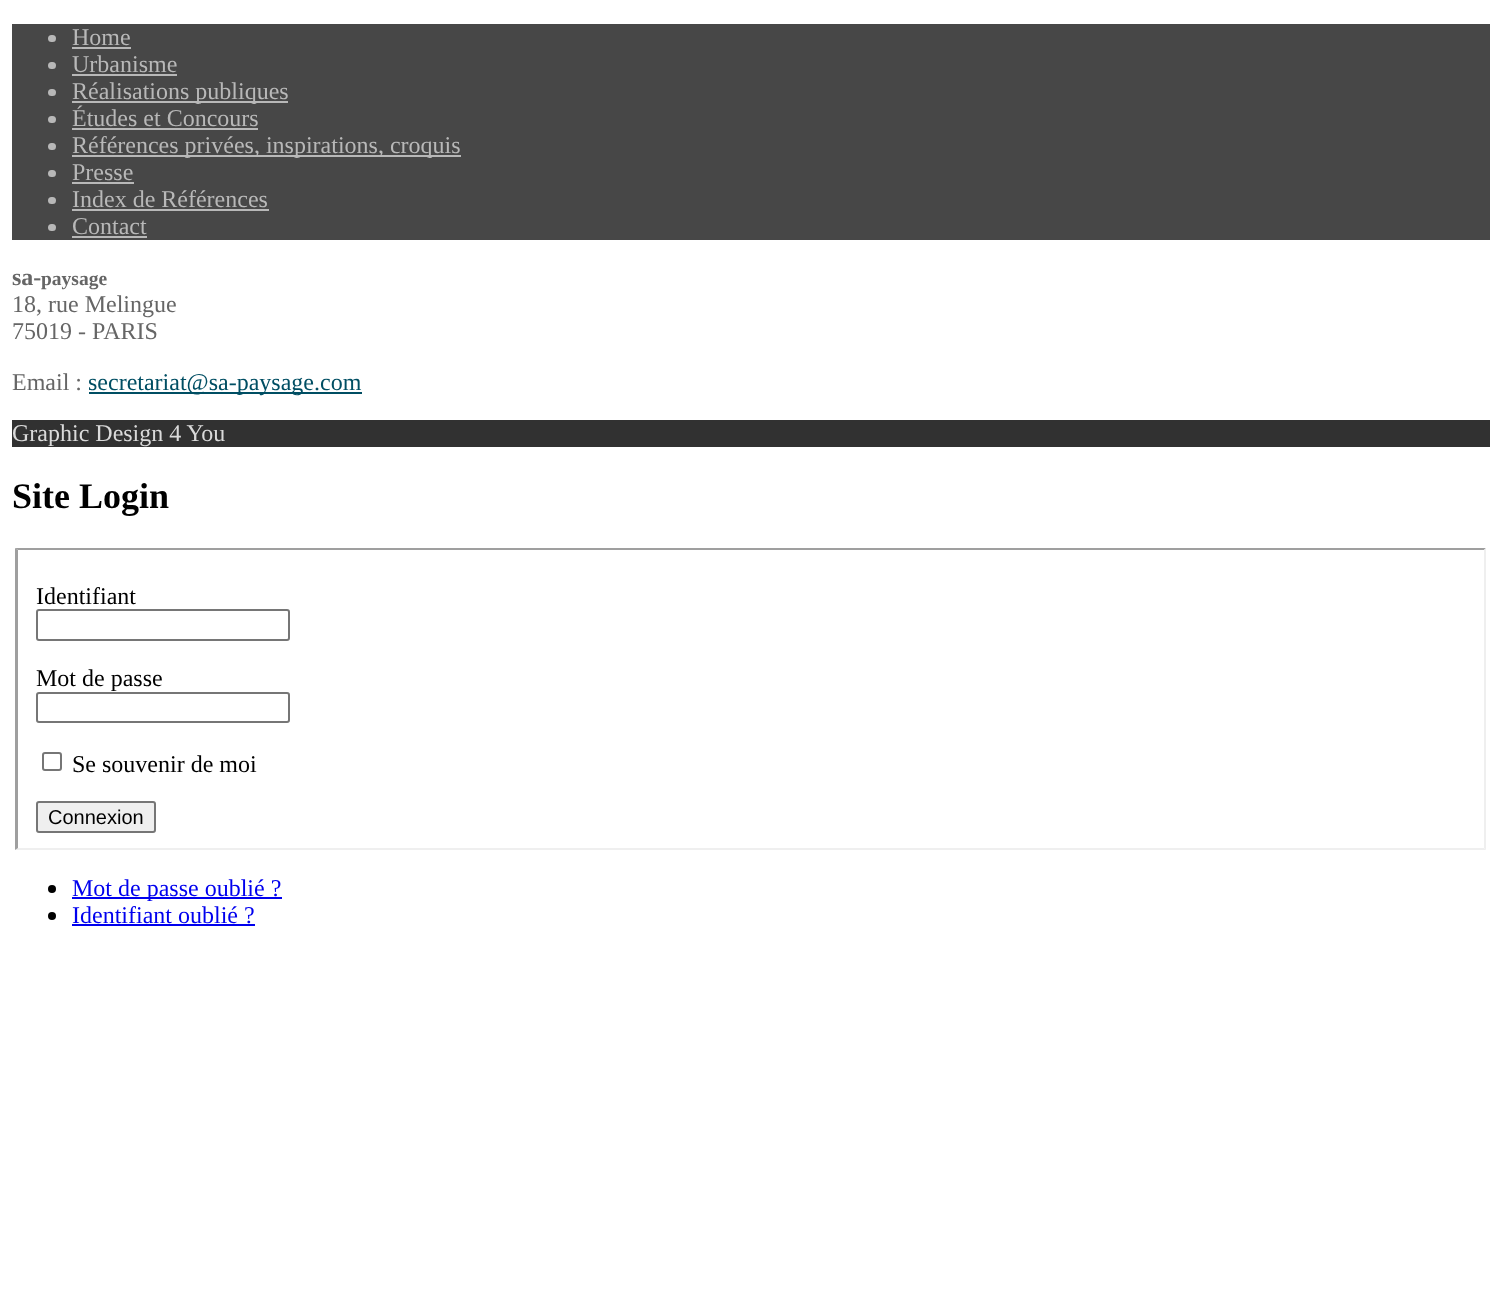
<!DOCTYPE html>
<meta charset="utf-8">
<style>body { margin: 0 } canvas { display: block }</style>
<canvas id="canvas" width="1501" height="1310"></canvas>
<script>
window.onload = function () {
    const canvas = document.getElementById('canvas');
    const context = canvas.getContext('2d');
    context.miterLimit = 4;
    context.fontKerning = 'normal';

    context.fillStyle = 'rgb(255, 255, 255)';
    context.fillRect(0, 0, 1501, 1310);
    context.fillStyle = 'rgb(71, 71, 71)';
    context.fillRect(12, 24, 1478, 216);
    context.fillStyle = 'rgb(184, 184, 184)';
    context.beginPath();
    context.roundRect(48, 35, 8, 7, 3.5);
    context.fill();
    context.fillRect(72, 47, 59, 2);
    context.beginPath();
    context.roundRect(48, 62, 8, 7, 3.5);
    context.fill();
    context.fillRect(72, 74, 105, 2);
    context.beginPath();
    context.roundRect(48, 89, 8, 7, 3.5);
    context.fill();
    context.fillRect(72, 101, 216, 2);
    context.beginPath();
    context.roundRect(48, 116, 8, 7, 3.5);
    context.fill();
    context.fillRect(72, 128, 186, 2);
    context.beginPath();
    context.roundRect(48, 143, 8, 7, 3.5);
    context.fill();
    context.fillRect(72, 155, 389, 2);
    context.beginPath();
    context.roundRect(48, 170, 8, 7, 3.5);
    context.fill();
    context.fillRect(72, 182, 62, 2);
    context.beginPath();
    context.roundRect(48, 197, 8, 7, 3.5);
    context.fill();
    context.fillRect(72, 209, 197, 2);
    context.beginPath();
    context.roundRect(48, 224, 8, 7, 3.5);
    context.fill();
    context.fillRect(72, 236, 75, 2);
    context.fillStyle = 'rgb(0, 78, 99)';
    context.fillRect(89, 392, 273, 2);
    context.fillStyle = 'rgb(49, 49, 49)';
    context.fillRect(12, 420, 1478, 27);
    context.fillStyle = 'rgb(159, 159, 159)';
    context.beginPath();
    context.moveTo(15, 548);
    context.lineTo(1486, 548);
    context.lineTo(1484, 550);
    context.lineTo(18, 550);
    context.closePath();
    context.fill();
    context.fillStyle = 'rgb(239, 239, 239)';
    context.beginPath();
    context.moveTo(1486, 548);
    context.lineTo(1486, 850);
    context.lineTo(1484, 848);
    context.lineTo(1484, 550);
    context.closePath();
    context.fill();
    context.beginPath();
    context.moveTo(1486, 850);
    context.lineTo(15, 850);
    context.lineTo(18, 848);
    context.lineTo(1484, 848);
    context.closePath();
    context.fill();
    context.fillStyle = 'rgb(159, 159, 159)';
    context.beginPath();
    context.moveTo(15, 850);
    context.lineTo(15, 548);
    context.lineTo(18, 550);
    context.lineTo(18, 848);
    context.closePath();
    context.fill();
    context.beginPath();
    context.roundRect(37, 610, 252, 30, 2);
    context.strokeStyle = 'rgb(118, 118, 118)';
    context.lineWidth = 2;
    context.stroke();
    context.beginPath();
    context.roundRect(37, 693, 252, 29, 2);
    context.stroke();
    context.beginPath();
    context.roundRect(43, 753, 18, 17, 2);
    context.stroke();
    context.fillStyle = 'rgb(239, 239, 239)';
    context.beginPath();
    context.roundRect(37, 802, 118, 30, 2);
    context.fill();
    context.stroke();
    context.fillStyle = 'rgb(0, 0, 0)';
    context.beginPath();
    context.arc(52, 889, 4, 0, 2 * Math.PI);
    context.fill();
    context.fillStyle = 'rgb(0, 0, 238)';
    context.fillRect(72, 897, 210, 2);
    context.fillStyle = 'rgb(0, 0, 0)';
    context.beginPath();
    context.arc(52, 916, 4, 0, 2 * Math.PI);
    context.fill();
    context.fillStyle = 'rgb(0, 0, 238)';
    context.fillRect(72, 924, 183, 2);
    context.font = '24px Liberation Serif';
    context.fillStyle = 'rgb(184, 184, 184)';
    context.fillText('Home', 72, 45);
    context.fillText('Urbanisme', 72, 72);
    context.fillText('Réalisations publiques', 72, 99);
    context.fillText('Études et Concours', 72, 126);
    context.fillText('Références privées, inspirations, croquis', 72, 153);
    context.fillText('Presse', 72, 180);
    context.fillText('Index de Références', 72, 207);
    context.fillText('Contact', 72, 234);
    context.font = 'bold 24px Liberation Serif';
    context.fillStyle = 'rgb(102, 102, 102)';
    context.fillText('sa-', 12, 285);
    context.font = 'bold 19.5px Liberation Serif';
    context.fillText('paysage', 41, 285);
    context.font = '24px Liberation Serif';
    context.fillText('18, rue Melingue', 12, 312);
    context.fillText('75019 - PARIS', 12, 339);
    context.fillText('Email :', 12, 390);
    context.fillStyle = 'rgb(0, 78, 99)';
    context.fillText('secretariat@sa-paysage.com', 88, 390);
    context.fillStyle = 'rgb(218, 218, 218)';
    context.fillText('Graphic Design 4 You', 12, 441);
    context.font = 'bold 36px Liberation Serif';
    context.fillStyle = 'rgb(0, 0, 0)';
    context.fillText('Site Login', 12, 508);
    context.font = '24px Liberation Serif';
    context.fillText('Identifiant', 36, 604);
    context.fillText('Mot de passe', 36, 686);
    context.fillText('Se souvenir de moi', 72, 772);
    context.font = '20px Liberation Sans';
    context.fillText('Connexion', 48, 824);
    context.font = '24px Liberation Serif';
    context.fillStyle = 'rgb(0, 0, 238)';
    context.fillText('Mot de passe oublié ?', 72, 896);
    context.fillText('Identifiant oublié ?', 72, 923);
};
</script>
